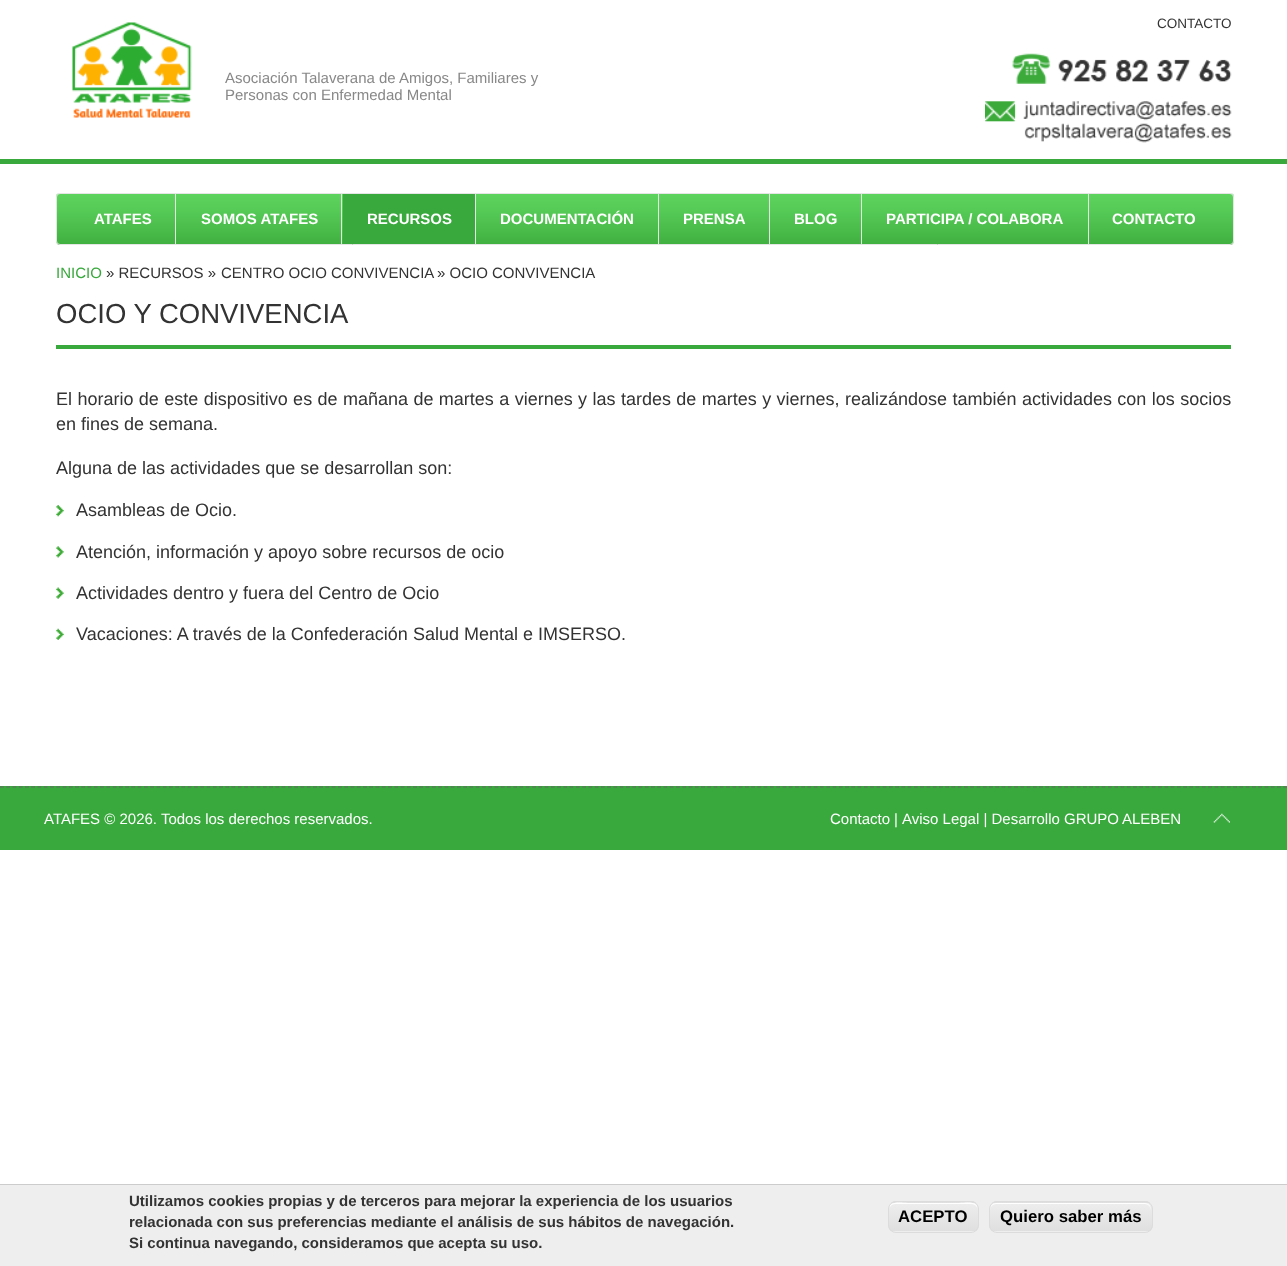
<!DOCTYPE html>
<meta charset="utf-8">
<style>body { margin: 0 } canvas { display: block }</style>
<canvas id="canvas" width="1287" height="1266"></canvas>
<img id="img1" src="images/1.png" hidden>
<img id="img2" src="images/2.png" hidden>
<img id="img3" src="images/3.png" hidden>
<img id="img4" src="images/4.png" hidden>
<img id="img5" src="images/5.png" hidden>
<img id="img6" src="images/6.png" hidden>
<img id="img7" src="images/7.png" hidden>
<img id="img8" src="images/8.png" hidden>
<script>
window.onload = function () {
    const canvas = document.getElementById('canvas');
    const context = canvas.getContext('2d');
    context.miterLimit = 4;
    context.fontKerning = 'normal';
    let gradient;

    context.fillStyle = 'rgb(255, 255, 255)';
    context.fillRect(0, 0, 1287, 1266);
    context.fillStyle = 'rgb(57, 169, 61)';
    context.fillRect(0, 159, 1287, 5);
    context.drawImage(document.getElementById('img1'), 985, 53, 247, 90);
    context.drawImage(document.getElementById('img2'), 72, 22, 120, 96);
    context.drawImage(document.getElementById('img3'), 56, 193, 1178, 52);
    context.beginPath();
    context.roundRect(56.5, 193.5, 1177, 51, 3.5);
    context.strokeStyle = 'rgb(229, 229, 229)';
    context.stroke();
    context.fillStyle = 'rgb(229, 229, 229)';
    context.fillRect(175, 194, 1, 50);
    context.fillRect(341, 194, 1, 50);
    context.fillStyle = 'rgb(57, 169, 61)';
    context.fillRect(343, 194, 132, 50);
    context.fillStyle = 'rgb(229, 229, 229)';
    context.fillRect(475, 194, 1, 50);
    context.fillRect(658, 194, 1, 50);
    context.fillRect(769, 194, 1, 50);
    context.fillRect(861, 194, 1, 50);
    context.fillRect(1088, 194, 1, 50);
    context.fillStyle = 'rgb(57, 169, 61)';
    context.fillRect(56, 345, 1175, 4);
    context.drawImage(document.getElementById('img4'), 56, 505, 8, 12);
    context.drawImage(document.getElementById('img5'), 56, 546, 8, 12);
    context.drawImage(document.getElementById('img6'), 56, 587, 8, 12);
    context.drawImage(document.getElementById('img7'), 56, 628, 8, 12);
    context.fillRect(0, 786, 1287, 64);
    context.beginPath();
    context.moveTo(0, 787);
    context.lineTo(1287.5, 787);
    context.strokeStyle = 'rgb(102, 102, 102)';
    context.lineWidth = 1.2;
    context.setLineDash([3.75, 2.51]);
    context.stroke();
    context.drawImage(document.getElementById('img8'), 1213, 813, 17, 10);
    context.fillStyle = 'rgb(238, 238, 238)';
    context.fillRect(0, 1185, 1287, 81);
    context.fillStyle = 'rgb(204, 204, 204)';
    context.fillRect(0, 1184, 1287, 1);
    context.save();
    context.beginPath();
    context.roundRect(888, 1201, 91, 32, 8);
    context.clip();
    gradient = context.createLinearGradient(889, 1174, 889, 1203);
    gradient.addColorStop(0.05, 'rgb(237, 237, 237)');
    gradient.addColorStop(1, 'rgb(223, 223, 223)');
    context.fillStyle = gradient;
    context.fillRect(888, 1201, 91, 2);
    gradient = context.createLinearGradient(889, 1203, 889, 1231);
    gradient.addColorStop(0.05, 'rgb(237, 237, 237)');
    gradient.addColorStop(1, 'rgb(223, 223, 223)');
    context.fillStyle = gradient;
    context.fillRect(888, 1203, 91, 28);
    context.restore();
    context.fillStyle = 'rgb(255, 255, 255)';
    context.beginPath();
    context.moveTo(895, 1204);
    context.lineTo(971, 1204);
    context.bezierCurveTo(975, 1204, 978, 1207, 978, 1210);
    context.bezierCurveTo(978, 1200, 966, 1203, 959, 1203);
    context.lineTo(908, 1203);
    context.bezierCurveTo(901, 1203, 889, 1200, 889, 1210);
    context.bezierCurveTo(889, 1207, 892, 1204, 895, 1204);
    context.closePath();
    context.fill();
    context.beginPath();
    context.roundRect(888.5, 1201.5, 90, 31, 7.5);
    context.strokeStyle = 'rgb(220, 220, 220)';
    context.lineWidth = 1;
    context.setLineDash([]);
    context.stroke();
    context.save();
    context.beginPath();
    context.roundRect(989, 1201, 164, 32, 8);
    context.clip();
    gradient = context.createLinearGradient(990, 1174, 990, 1203);
    gradient.addColorStop(0.05, 'rgb(237, 237, 237)');
    gradient.addColorStop(1, 'rgb(223, 223, 223)');
    context.fillStyle = gradient;
    context.fillRect(989, 1201, 164, 2);
    gradient = context.createLinearGradient(990, 1203, 990, 1231);
    gradient.addColorStop(0.05, 'rgb(237, 237, 237)');
    gradient.addColorStop(1, 'rgb(223, 223, 223)');
    context.fillStyle = gradient;
    context.fillRect(989, 1203, 164, 28);
    context.restore();
    context.beginPath();
    context.moveTo(996, 1204);
    context.lineTo(1145, 1204);
    context.bezierCurveTo(1148, 1204, 1151, 1207, 1151, 1210);
    context.lineTo(1151, 1209);
    context.bezierCurveTo(1151, 1206, 1148, 1203, 1145, 1203);
    context.lineTo(996, 1203);
    context.bezierCurveTo(993, 1203, 990, 1206, 990, 1209);
    context.lineTo(990, 1210);
    context.bezierCurveTo(990, 1207, 993, 1204, 996, 1204);
    context.closePath();
    context.fill();
    context.beginPath();
    context.roundRect(989.5, 1201.5, 163, 31, 7.5);
    context.stroke();
    context.font = '13.5px Liberation Sans';
    context.fillStyle = 'rgb(51, 51, 51)';
    context.fillText('CONTACTO', 1157, 28);
    context.font = '15px Liberation Sans';
    context.fillStyle = 'rgb(136, 136, 136)';
    context.fillText('Asociación Talaverana de Amigos, Familiares y', 225, 83);
    context.fillText('Personas con Enfermedad Mental', 225, 100);
    context.font = 'bold 15px Liberation Sans';
    context.fillStyle = 'rgb(255, 255, 255)';
    context.fillText('ATAFES', 94, 224);
    context.fillText('SOMOS ATAFES', 201, 224);
    context.fillText('RECURSOS', 367, 224);
    context.fillText('DOCUMENTACIÓN', 500, 224);
    context.fillText('PRENSA', 683, 224);
    context.fillText('BLOG', 794, 224);
    context.fillText('PARTICIPA / COLABORA', 886, 224);
    context.fillText('CONTACTO', 1112, 224);
    context.font = '15px Liberation Sans';
    context.fillStyle = 'rgb(57, 169, 61)';
    context.fillText('INICIO', 56, 278);
    context.fillStyle = 'rgb(51, 51, 51)';
    context.fillText('» RECURSOS »', 106, 278);
    context.fillText('CENTRO OCIO CONVIVENCIA', 221, 278);
    context.fillText('» OCIO CONVIVENCIA', 437, 278);
    context.font = '27.5px Liberation Sans';
    context.fillText('OCIO Y CONVIVENCIA', 56, 323);
    context.wordSpacing = '0.4px';
    context.font = '18px Liberation Sans';
    context.fillText('El horario de este dispositivo es de mañana de martes a viernes y las tardes de martes y viernes, realizándose también actividades con los socios', 56, 405);
    context.wordSpacing = '0px';
    context.fillText('en fines de semana.', 56, 430);
    context.fillText('Alguna de las actividades que se desarrollan son:', 56, 474);
    context.fillText('Asambleas de Ocio.', 76, 516);
    context.fillText('Atención, información y apoyo sobre recursos de ocio', 76, 558);
    context.fillText('Actividades dentro y fuera del Centro de Ocio', 76, 599);
    context.fillText('Vacaciones: A través de la Confederación Salud Mental e IMSERSO.', 76, 640);
    context.font = '15px Liberation Sans';
    context.fillStyle = 'rgb(255, 255, 255)';
    context.fillText('ATAFES © 2026. Todos los derechos reservados.', 44, 824);
    context.fillText('Contacto', 830, 824);
    context.fillText('|', 894, 824);
    context.fillText('Aviso Legal | Desarrollo GRUPO', 902, 824);
    context.fillText('ALEBEN', 1122, 824);
    context.font = 'bold 15px Liberation Sans';
    context.fillStyle = 'rgb(51, 51, 51)';
    context.fillText('Utilizamos cookies propias y de terceros para mejorar la experiencia de los usuarios', 129, 1206);
    context.fillText('relacionada con sus preferencias mediante el análisis de sus hábitos de navegación.', 129, 1227);
    context.fillText('Si continua navegando, consideramos que acepta su uso.', 129, 1248);
    context.font = 'bold 16.75px Liberation Sans';
    context.fillStyle = 'rgb(0, 0, 0)';
    context.fillText('ACEPTO', 898, 1222);
    context.fillText('Quiero saber más', 1000, 1222);
};
</script>
